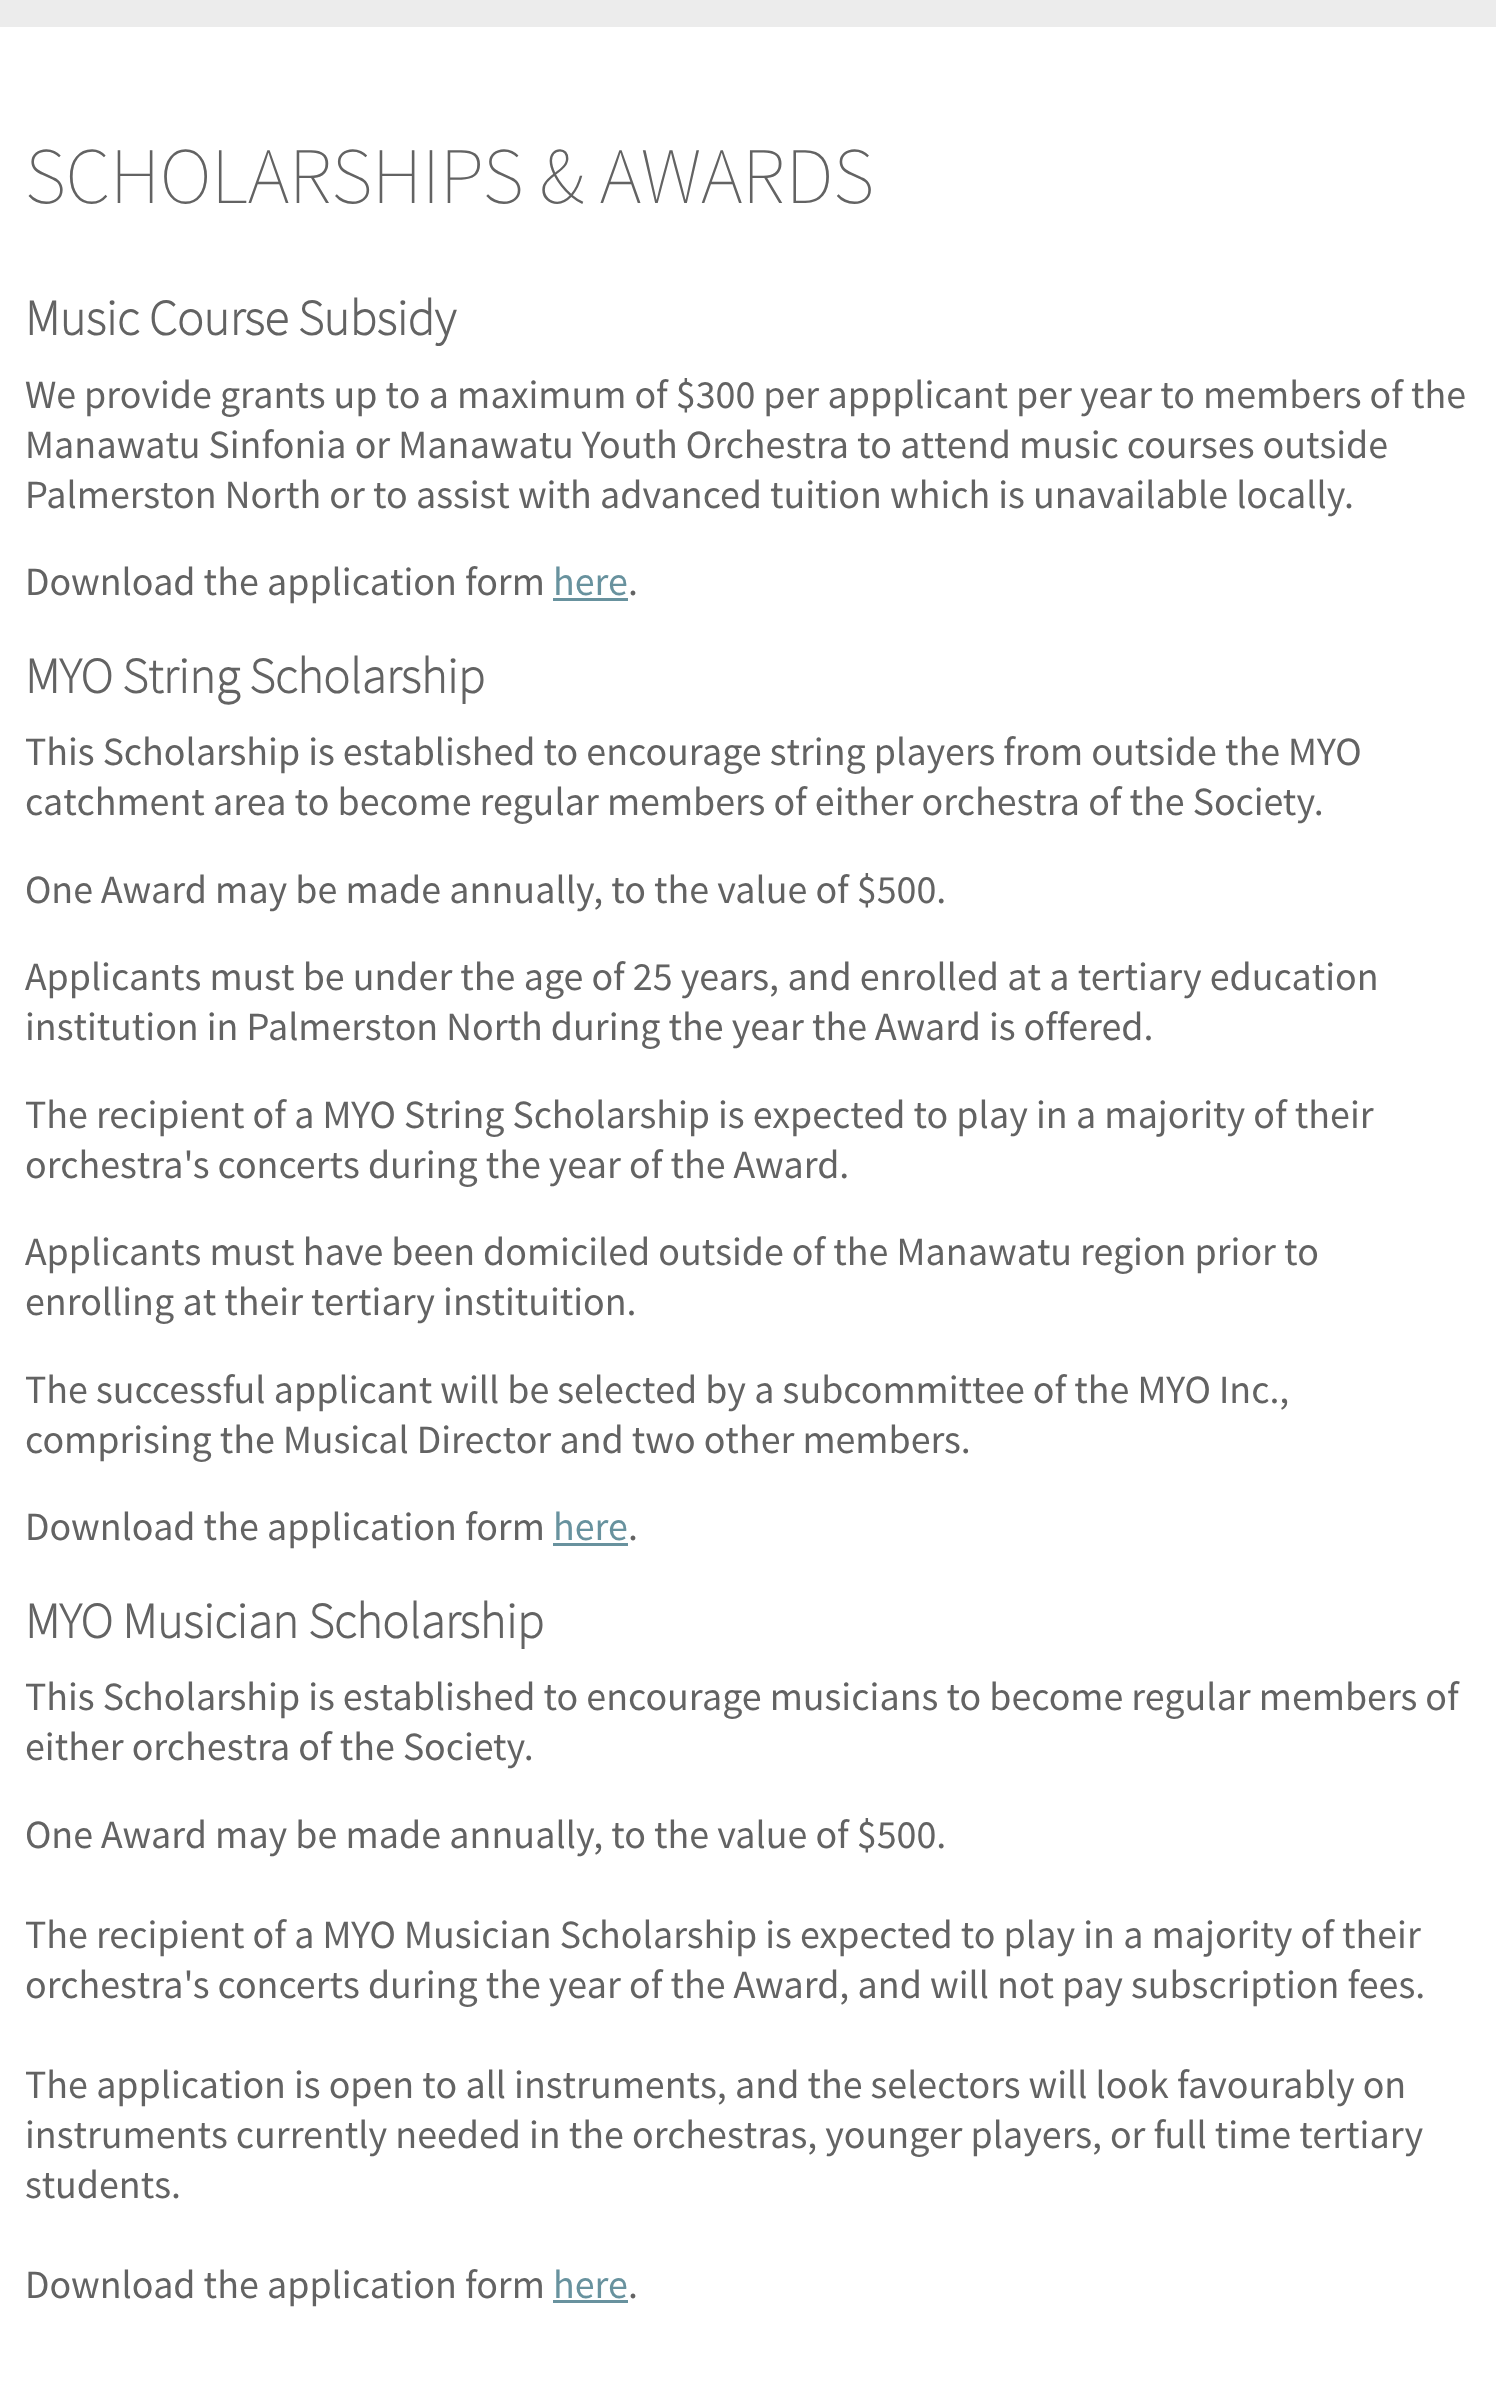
<!DOCTYPE html>
<meta charset="utf-8">
<style>body { margin: 0 } canvas { display: block }</style>
<canvas id="canvas" width="1496" height="2390"></canvas>
<script>
window.onload = function () {
    const canvas = document.getElementById('canvas');
    const context = canvas.getContext('2d');
    context.miterLimit = 4;
    context.fontKerning = 'normal';

    context.fillStyle = 'rgb(255, 255, 255)';
    context.fillRect(0, 0, 1496, 2390);
    context.fillStyle = 'rgb(236, 236, 236)';
    context.fillRect(0, 0, 1496, 27);
    context.fillStyle = 'rgb(104, 146, 158)';
    context.fillRect(553, 598, 75, 3);
    context.fillRect(553, 1543, 75, 3);
    context.fillRect(553, 2300, 75, 3);
    context.font = '200 80px Source Sans Pro';
    context.fillStyle = 'rgb(99, 99, 99)';
    context.fillText('SCHOLARSHIPS & AWARDS', 25, 203);
    context.font = 'bold 50px Source Sans Pro';
    context.fillText('Music Course Subsidy', 25, 335);
    context.font = '40px Source Sans Pro';
    context.fillText('We provide grants up to a maximum of $300 per appplicant per year to members of the', 25, 408);
    context.fillText('Manawatu Sinfonia or Manawatu Youth Orchestra to attend music courses outside', 25, 458);
    context.fillText('Palmerston North or to assist with advanced tuition which is unavailable locally.', 25, 508);
    context.fillText('Download the application form', 25, 595);
    context.fillStyle = 'rgb(104, 146, 158)';
    context.fillText('here', 553, 595);
    context.fillStyle = 'rgb(99, 99, 99)';
    context.fillText('.', 628, 595);
    context.font = 'bold 50px Source Sans Pro';
    context.fillText('MYO String Scholarship', 25, 693);
    context.font = '40px Source Sans Pro';
    context.fillText('This Scholarship is established to encourage string players from outside the MYO', 25, 765);
    context.fillText('catchment area to become regular members of either orchestra of the Society.', 25, 815);
    context.fillText('One Award may be made annually, to the value of $500.', 25, 903);
    context.fillText('Applicants must be under the age of 25 years, and enrolled at a tertiary education', 25, 990);
    context.fillText('institution in Palmerston North during the year the Award is offered.', 25, 1040);
    context.fillText('The recipient of a MYO String Scholarship is expected to play in a majority of their', 25, 1128);
    context.fillText('orchestra\'s concerts during the year of the Award.', 25, 1178);
    context.fillText('Applicants must have been domiciled outside of the Manawatu region prior to', 25, 1265);
    context.fillText('enrolling at their tertiary instituition.', 25, 1315);
    context.fillText('The successful applicant will be selected by a subcommittee of the MYO Inc.,', 25, 1403);
    context.fillText('comprising the Musical Director and two other members.', 25, 1453);
    context.fillText('Download the application form', 25, 1540);
    context.fillStyle = 'rgb(104, 146, 158)';
    context.fillText('here', 553, 1540);
    context.fillStyle = 'rgb(99, 99, 99)';
    context.fillText('.', 628, 1540);
    context.font = 'bold 50px Source Sans Pro';
    context.fillText('MYO Musician Scholarship', 25, 1638);
    context.font = '40px Source Sans Pro';
    context.fillText('This Scholarship is established to encourage musicians to become regular members of', 25, 1710);
    context.fillText('either orchestra of the Society.', 25, 1760);
    context.fillText('One Award may be made annually, to the value of $500.', 25, 1848);
    context.fillText('The recipient of a MYO Musician Scholarship is expected to play in a majority of their', 25, 1948);
    context.fillText('orchestra\'s concerts during the year of the Award, and will not pay subscription fees.', 25, 1998);
    context.fillText('The application is open to all instruments, and the selectors will look favourably on', 25, 2098);
    context.fillText('instruments currently needed in the orchestras, younger players, or full time tertiary', 25, 2148);
    context.fillText('students.', 25, 2198);
    context.fillText('Download the application form', 25, 2298);
    context.fillStyle = 'rgb(104, 146, 158)';
    context.fillText('here', 553, 2298);
    context.fillStyle = 'rgb(99, 99, 99)';
    context.fillText('.', 628, 2298);
};
</script>
